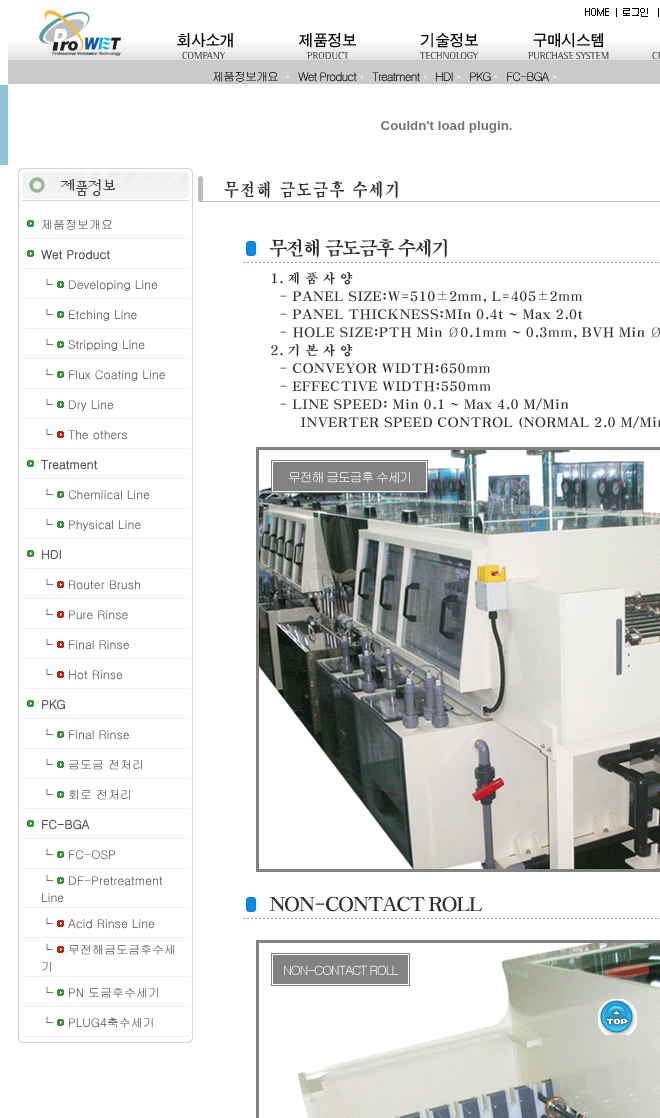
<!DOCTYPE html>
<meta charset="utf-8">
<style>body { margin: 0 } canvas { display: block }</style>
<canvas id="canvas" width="660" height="1118"></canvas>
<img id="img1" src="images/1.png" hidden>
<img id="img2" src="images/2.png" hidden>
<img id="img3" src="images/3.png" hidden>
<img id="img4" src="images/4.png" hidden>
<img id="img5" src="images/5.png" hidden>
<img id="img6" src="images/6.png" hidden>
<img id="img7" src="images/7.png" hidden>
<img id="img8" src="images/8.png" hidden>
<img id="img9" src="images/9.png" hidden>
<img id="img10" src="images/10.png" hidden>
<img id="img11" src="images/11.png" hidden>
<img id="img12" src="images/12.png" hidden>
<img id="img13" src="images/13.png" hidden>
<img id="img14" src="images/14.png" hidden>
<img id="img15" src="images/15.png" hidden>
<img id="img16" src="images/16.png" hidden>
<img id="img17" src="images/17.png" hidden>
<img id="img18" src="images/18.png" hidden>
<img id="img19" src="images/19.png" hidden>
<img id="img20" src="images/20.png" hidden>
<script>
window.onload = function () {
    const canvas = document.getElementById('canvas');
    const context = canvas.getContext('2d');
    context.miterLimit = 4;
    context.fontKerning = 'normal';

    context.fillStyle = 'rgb(255, 255, 255)';
    context.fillRect(0, 0, 660, 1118);
    context.drawImage(document.getElementById('img1'), 8, 42, 652, 42);
    context.drawImage(document.getElementById('img2'), 39, 10, 82, 46);
    context.drawImage(document.getElementById('img3'), 585, 8, 32, 9);
    context.drawImage(document.getElementById('img4'), 623, 8, 36, 9);
    context.drawImage(document.getElementById('img5'), 177, 33, 56, 27);
    context.drawImage(document.getElementById('img6'), 299, 33, 57, 27);
    context.drawImage(document.getElementById('img7'), 420, 33, 58, 27);
    context.drawImage(document.getElementById('img8'), 528, 33, 81, 27);
    context.drawImage(document.getElementById('img9'), 652, 51, 8, 9);
    context.fillStyle = 'rgb(143, 195, 218)';
    context.fillRect(0, 85, 8, 80);
    context.drawImage(document.getElementById('img10'), 381, 121, 131, 12);
    context.drawImage(document.getElementById('img11'), 18, 168, 175, 33);
    context.fillStyle = 'rgb(214, 214, 214)';
    context.fillRect(18, 201, 1, 836);
    context.beginPath();
    context.moveTo(22, 238.5);
    context.lineTo(39, 238.5);
    context.strokeStyle = 'rgb(229, 229, 229)';
    context.setLineDash([1, 1]);
    context.stroke();
    context.drawImage(document.getElementById('img12'), 27, 220, 7, 7);
    context.beginPath();
    context.moveTo(39, 238.5);
    context.lineTo(190, 238.5);
    context.stroke();
    context.beginPath();
    context.moveTo(22, 268.5);
    context.lineTo(39, 268.5);
    context.stroke();
    context.drawImage(document.getElementById('img12'), 27, 250, 7, 7);
    context.beginPath();
    context.moveTo(39, 268.5);
    context.lineTo(190, 268.5);
    context.stroke();
    context.beginPath();
    context.moveTo(39, 298.5);
    context.lineTo(190, 298.5);
    context.stroke();
    context.drawImage(document.getElementById('img12'), 57, 281, 7, 7);
    context.beginPath();
    context.moveTo(22, 298.5);
    context.lineTo(39, 298.5);
    context.stroke();
    context.beginPath();
    context.moveTo(39, 328.5);
    context.lineTo(190, 328.5);
    context.stroke();
    context.drawImage(document.getElementById('img12'), 57, 311, 7, 7);
    context.beginPath();
    context.moveTo(22, 328.5);
    context.lineTo(39, 328.5);
    context.stroke();
    context.beginPath();
    context.moveTo(39, 358.5);
    context.lineTo(190, 358.5);
    context.stroke();
    context.drawImage(document.getElementById('img12'), 57, 341, 7, 7);
    context.beginPath();
    context.moveTo(22, 358.5);
    context.lineTo(39, 358.5);
    context.stroke();
    context.beginPath();
    context.moveTo(39, 388.5);
    context.lineTo(190, 388.5);
    context.stroke();
    context.drawImage(document.getElementById('img12'), 57, 371, 7, 7);
    context.beginPath();
    context.moveTo(22, 388.5);
    context.lineTo(39, 388.5);
    context.stroke();
    context.beginPath();
    context.moveTo(39, 418.5);
    context.lineTo(190, 418.5);
    context.stroke();
    context.drawImage(document.getElementById('img12'), 57, 401, 7, 7);
    context.beginPath();
    context.moveTo(22, 418.5);
    context.lineTo(39, 418.5);
    context.stroke();
    context.beginPath();
    context.moveTo(39, 448.5);
    context.lineTo(190, 448.5);
    context.stroke();
    context.drawImage(document.getElementById('img13'), 57, 431, 7, 7);
    context.beginPath();
    context.moveTo(22, 448.5);
    context.lineTo(39, 448.5);
    context.stroke();
    context.beginPath();
    context.moveTo(22, 478.5);
    context.lineTo(39, 478.5);
    context.stroke();
    context.drawImage(document.getElementById('img12'), 27, 460, 7, 7);
    context.beginPath();
    context.moveTo(39, 478.5);
    context.lineTo(190, 478.5);
    context.stroke();
    context.beginPath();
    context.moveTo(39, 508.5);
    context.lineTo(190, 508.5);
    context.stroke();
    context.drawImage(document.getElementById('img12'), 57, 491, 7, 7);
    context.beginPath();
    context.moveTo(22, 508.5);
    context.lineTo(39, 508.5);
    context.stroke();
    context.beginPath();
    context.moveTo(39, 538.5);
    context.lineTo(190, 538.5);
    context.stroke();
    context.drawImage(document.getElementById('img12'), 57, 521, 7, 7);
    context.beginPath();
    context.moveTo(22, 538.5);
    context.lineTo(39, 538.5);
    context.stroke();
    context.beginPath();
    context.moveTo(22, 568.5);
    context.lineTo(39, 568.5);
    context.stroke();
    context.drawImage(document.getElementById('img12'), 27, 550, 7, 7);
    context.beginPath();
    context.moveTo(39, 568.5);
    context.lineTo(190, 568.5);
    context.stroke();
    context.beginPath();
    context.moveTo(39, 598.5);
    context.lineTo(190, 598.5);
    context.stroke();
    context.drawImage(document.getElementById('img13'), 57, 581, 7, 7);
    context.beginPath();
    context.moveTo(22, 598.5);
    context.lineTo(39, 598.5);
    context.stroke();
    context.beginPath();
    context.moveTo(39, 628.5);
    context.lineTo(190, 628.5);
    context.stroke();
    context.drawImage(document.getElementById('img13'), 57, 611, 7, 7);
    context.beginPath();
    context.moveTo(22, 628.5);
    context.lineTo(39, 628.5);
    context.stroke();
    context.beginPath();
    context.moveTo(39, 658.5);
    context.lineTo(190, 658.5);
    context.stroke();
    context.drawImage(document.getElementById('img13'), 57, 641, 7, 7);
    context.beginPath();
    context.moveTo(22, 658.5);
    context.lineTo(39, 658.5);
    context.stroke();
    context.beginPath();
    context.moveTo(39, 688.5);
    context.lineTo(190, 688.5);
    context.stroke();
    context.drawImage(document.getElementById('img13'), 57, 671, 7, 7);
    context.beginPath();
    context.moveTo(22, 688.5);
    context.lineTo(39, 688.5);
    context.stroke();
    context.beginPath();
    context.moveTo(22, 718.5);
    context.lineTo(39, 718.5);
    context.stroke();
    context.drawImage(document.getElementById('img12'), 27, 700, 7, 7);
    context.beginPath();
    context.moveTo(39, 718.5);
    context.lineTo(190, 718.5);
    context.stroke();
    context.beginPath();
    context.moveTo(39, 748.5);
    context.lineTo(190, 748.5);
    context.stroke();
    context.drawImage(document.getElementById('img12'), 57, 731, 7, 7);
    context.beginPath();
    context.moveTo(22, 748.5);
    context.lineTo(39, 748.5);
    context.stroke();
    context.beginPath();
    context.moveTo(39, 778.5);
    context.lineTo(190, 778.5);
    context.stroke();
    context.drawImage(document.getElementById('img12'), 57, 761, 7, 7);
    context.beginPath();
    context.moveTo(22, 778.5);
    context.lineTo(39, 778.5);
    context.stroke();
    context.beginPath();
    context.moveTo(39, 808.5);
    context.lineTo(190, 808.5);
    context.stroke();
    context.drawImage(document.getElementById('img12'), 57, 791, 7, 7);
    context.beginPath();
    context.moveTo(22, 808.5);
    context.lineTo(39, 808.5);
    context.stroke();
    context.beginPath();
    context.moveTo(22, 838.5);
    context.lineTo(39, 838.5);
    context.stroke();
    context.drawImage(document.getElementById('img12'), 27, 820, 7, 7);
    context.beginPath();
    context.moveTo(39, 838.5);
    context.lineTo(190, 838.5);
    context.stroke();
    context.beginPath();
    context.moveTo(39, 868.5);
    context.lineTo(190, 868.5);
    context.stroke();
    context.drawImage(document.getElementById('img12'), 57, 851, 7, 7);
    context.beginPath();
    context.moveTo(22, 868.5);
    context.lineTo(39, 868.5);
    context.stroke();
    context.beginPath();
    context.moveTo(39, 907.5);
    context.lineTo(190, 907.5);
    context.stroke();
    context.drawImage(document.getElementById('img12'), 57, 877, 7, 7);
    context.beginPath();
    context.moveTo(22, 907.5);
    context.lineTo(39, 907.5);
    context.stroke();
    context.beginPath();
    context.moveTo(39, 937.5);
    context.lineTo(190, 937.5);
    context.stroke();
    context.drawImage(document.getElementById('img13'), 57, 920, 7, 7);
    context.beginPath();
    context.moveTo(22, 937.5);
    context.lineTo(39, 937.5);
    context.stroke();
    context.beginPath();
    context.moveTo(39, 976.5);
    context.lineTo(190, 976.5);
    context.stroke();
    context.drawImage(document.getElementById('img13'), 57, 946, 7, 7);
    context.beginPath();
    context.moveTo(22, 976.5);
    context.lineTo(39, 976.5);
    context.stroke();
    context.beginPath();
    context.moveTo(39, 1006.5);
    context.lineTo(190, 1006.5);
    context.stroke();
    context.drawImage(document.getElementById('img12'), 57, 989, 7, 7);
    context.beginPath();
    context.moveTo(22, 1006.5);
    context.lineTo(39, 1006.5);
    context.stroke();
    context.beginPath();
    context.moveTo(39, 1036.5);
    context.lineTo(190, 1036.5);
    context.stroke();
    context.drawImage(document.getElementById('img12'), 57, 1019, 7, 7);
    context.beginPath();
    context.moveTo(22, 1036.5);
    context.lineTo(39, 1036.5);
    context.stroke();
    context.fillRect(192, 201, 1, 836);
    context.drawImage(document.getElementById('img14'), 18, 1037, 175, 6);
    context.drawImage(document.getElementById('img15'), 198, 176, 462, 26);
    context.drawImage(document.getElementById('img16'), 243, 239, 417, 189);
    context.drawImage(document.getElementById('img17'), 256, 447, 404, 425);
    context.drawImage(document.getElementById('img18'), 243, 896, 417, 23);
    context.drawImage(document.getElementById('img19'), 256, 940, 404, 178);
    context.drawImage(document.getElementById('img20'), 598, 999, 39, 36);
    context.letterSpacing = '-1px';
    context.font = '12px Gulim';
    context.fillStyle = 'rgb(0, 0, 0)';
    context.fillText('제품정보개요', 212, 81);
    context.letterSpacing = '0px';
    context.fillStyle = 'rgb(255, 255, 255)';
    context.fillText('ㆍ', 282, 81);
    context.letterSpacing = '-1px';
    context.fillStyle = 'rgb(0, 0, 0)';
    context.fillText('Wet Product', 298, 81);
    context.letterSpacing = '0px';
    context.fillStyle = 'rgb(255, 255, 255)';
    context.fillText('ㆍ', 356, 81);
    context.letterSpacing = '-1px';
    context.fillStyle = 'rgb(0, 0, 0)';
    context.fillText('Treatment', 372, 81);
    context.letterSpacing = '0px';
    context.fillStyle = 'rgb(255, 255, 255)';
    context.fillText('ㆍ', 419, 81);
    context.letterSpacing = '-1px';
    context.fillStyle = 'rgb(0, 0, 0)';
    context.fillText('HDI', 435, 81);
    context.letterSpacing = '0px';
    context.fillStyle = 'rgb(255, 255, 255)';
    context.fillText('ㆍ', 453, 81);
    context.letterSpacing = '-1px';
    context.fillStyle = 'rgb(0, 0, 0)';
    context.fillText('PKG', 469, 81);
    context.letterSpacing = '0px';
    context.fillStyle = 'rgb(255, 255, 255)';
    context.fillText('ㆍ', 490, 81);
    context.letterSpacing = '-1px';
    context.fillStyle = 'rgb(0, 0, 0)';
    context.fillText('FC-BGA', 506, 81);
    context.letterSpacing = '0px';
    context.fillStyle = 'rgb(255, 255, 255)';
    context.fillText('ㆍ', 549, 81);
    context.fillStyle = 'rgb(80, 80, 80)';
    context.fillText('제품정보개요', 41, 229);
    context.font = 'bold 12px Gulim';
    context.fillText('Wet Product', 41, 259);
    context.font = '12px Gulim';
    context.fillText('└', 41, 289);
    context.fillText('Developing Line', 68, 289);
    context.fillText('└', 41, 319);
    context.fillText('Etching Line', 68, 319);
    context.fillText('└', 41, 349);
    context.fillText('Stripping Line', 68, 349);
    context.fillText('└', 41, 379);
    context.fillText('Flux Coating Line', 68, 379);
    context.fillText('└', 41, 409);
    context.fillText('Dry Line', 68, 409);
    context.fillText('└', 41, 439);
    context.fillText('The others', 68, 439);
    context.font = 'bold 12px Gulim';
    context.fillText('Treatment', 41, 469);
    context.font = '12px Gulim';
    context.fillText('└', 41, 499);
    context.fillText('Chemiical Line', 68, 499);
    context.fillText('└', 41, 529);
    context.fillText('Physical Line', 68, 529);
    context.font = 'bold 12px Gulim';
    context.fillText('HDI', 41, 559);
    context.font = '12px Gulim';
    context.fillText('└', 41, 589);
    context.fillText('Router Brush', 68, 589);
    context.fillText('└', 41, 619);
    context.fillText('Pure Rinse', 68, 619);
    context.fillText('└', 41, 649);
    context.fillText('Final Rinse', 68, 649);
    context.fillText('└', 41, 679);
    context.fillText('Hot Rinse', 68, 679);
    context.font = 'bold 12px Gulim';
    context.fillText('PKG', 41, 709);
    context.font = '12px Gulim';
    context.fillText('└', 41, 739);
    context.fillText('Final Rinse', 68, 739);
    context.fillText('└', 41, 769);
    context.fillText('금도금 전처리', 68, 769);
    context.fillText('└', 41, 799);
    context.fillText('회로 전처리', 68, 799);
    context.font = 'bold 12px Gulim';
    context.fillText('FC-BGA', 41, 829);
    context.font = '12px Gulim';
    context.fillText('└', 41, 859);
    context.fillText('FC-OSP', 68, 859);
    context.fillText('└', 41, 885);
    context.fillText('DF-Pretreatment', 68, 885);
    context.fillText('Line', 41, 902);
    context.fillText('└', 41, 928);
    context.fillText('Acid Rinse Line', 68, 928);
    context.fillText('└', 41, 954);
    context.fillText('무전해금도금후수세', 68, 954);
    context.fillText('기', 41, 971);
    context.fillText('└', 41, 997);
    context.fillText('PN 도금후수세기', 68, 997);
    context.fillText('└', 41, 1027);
    context.fillText('PLUG4축수세기', 68, 1027);
};
</script>
